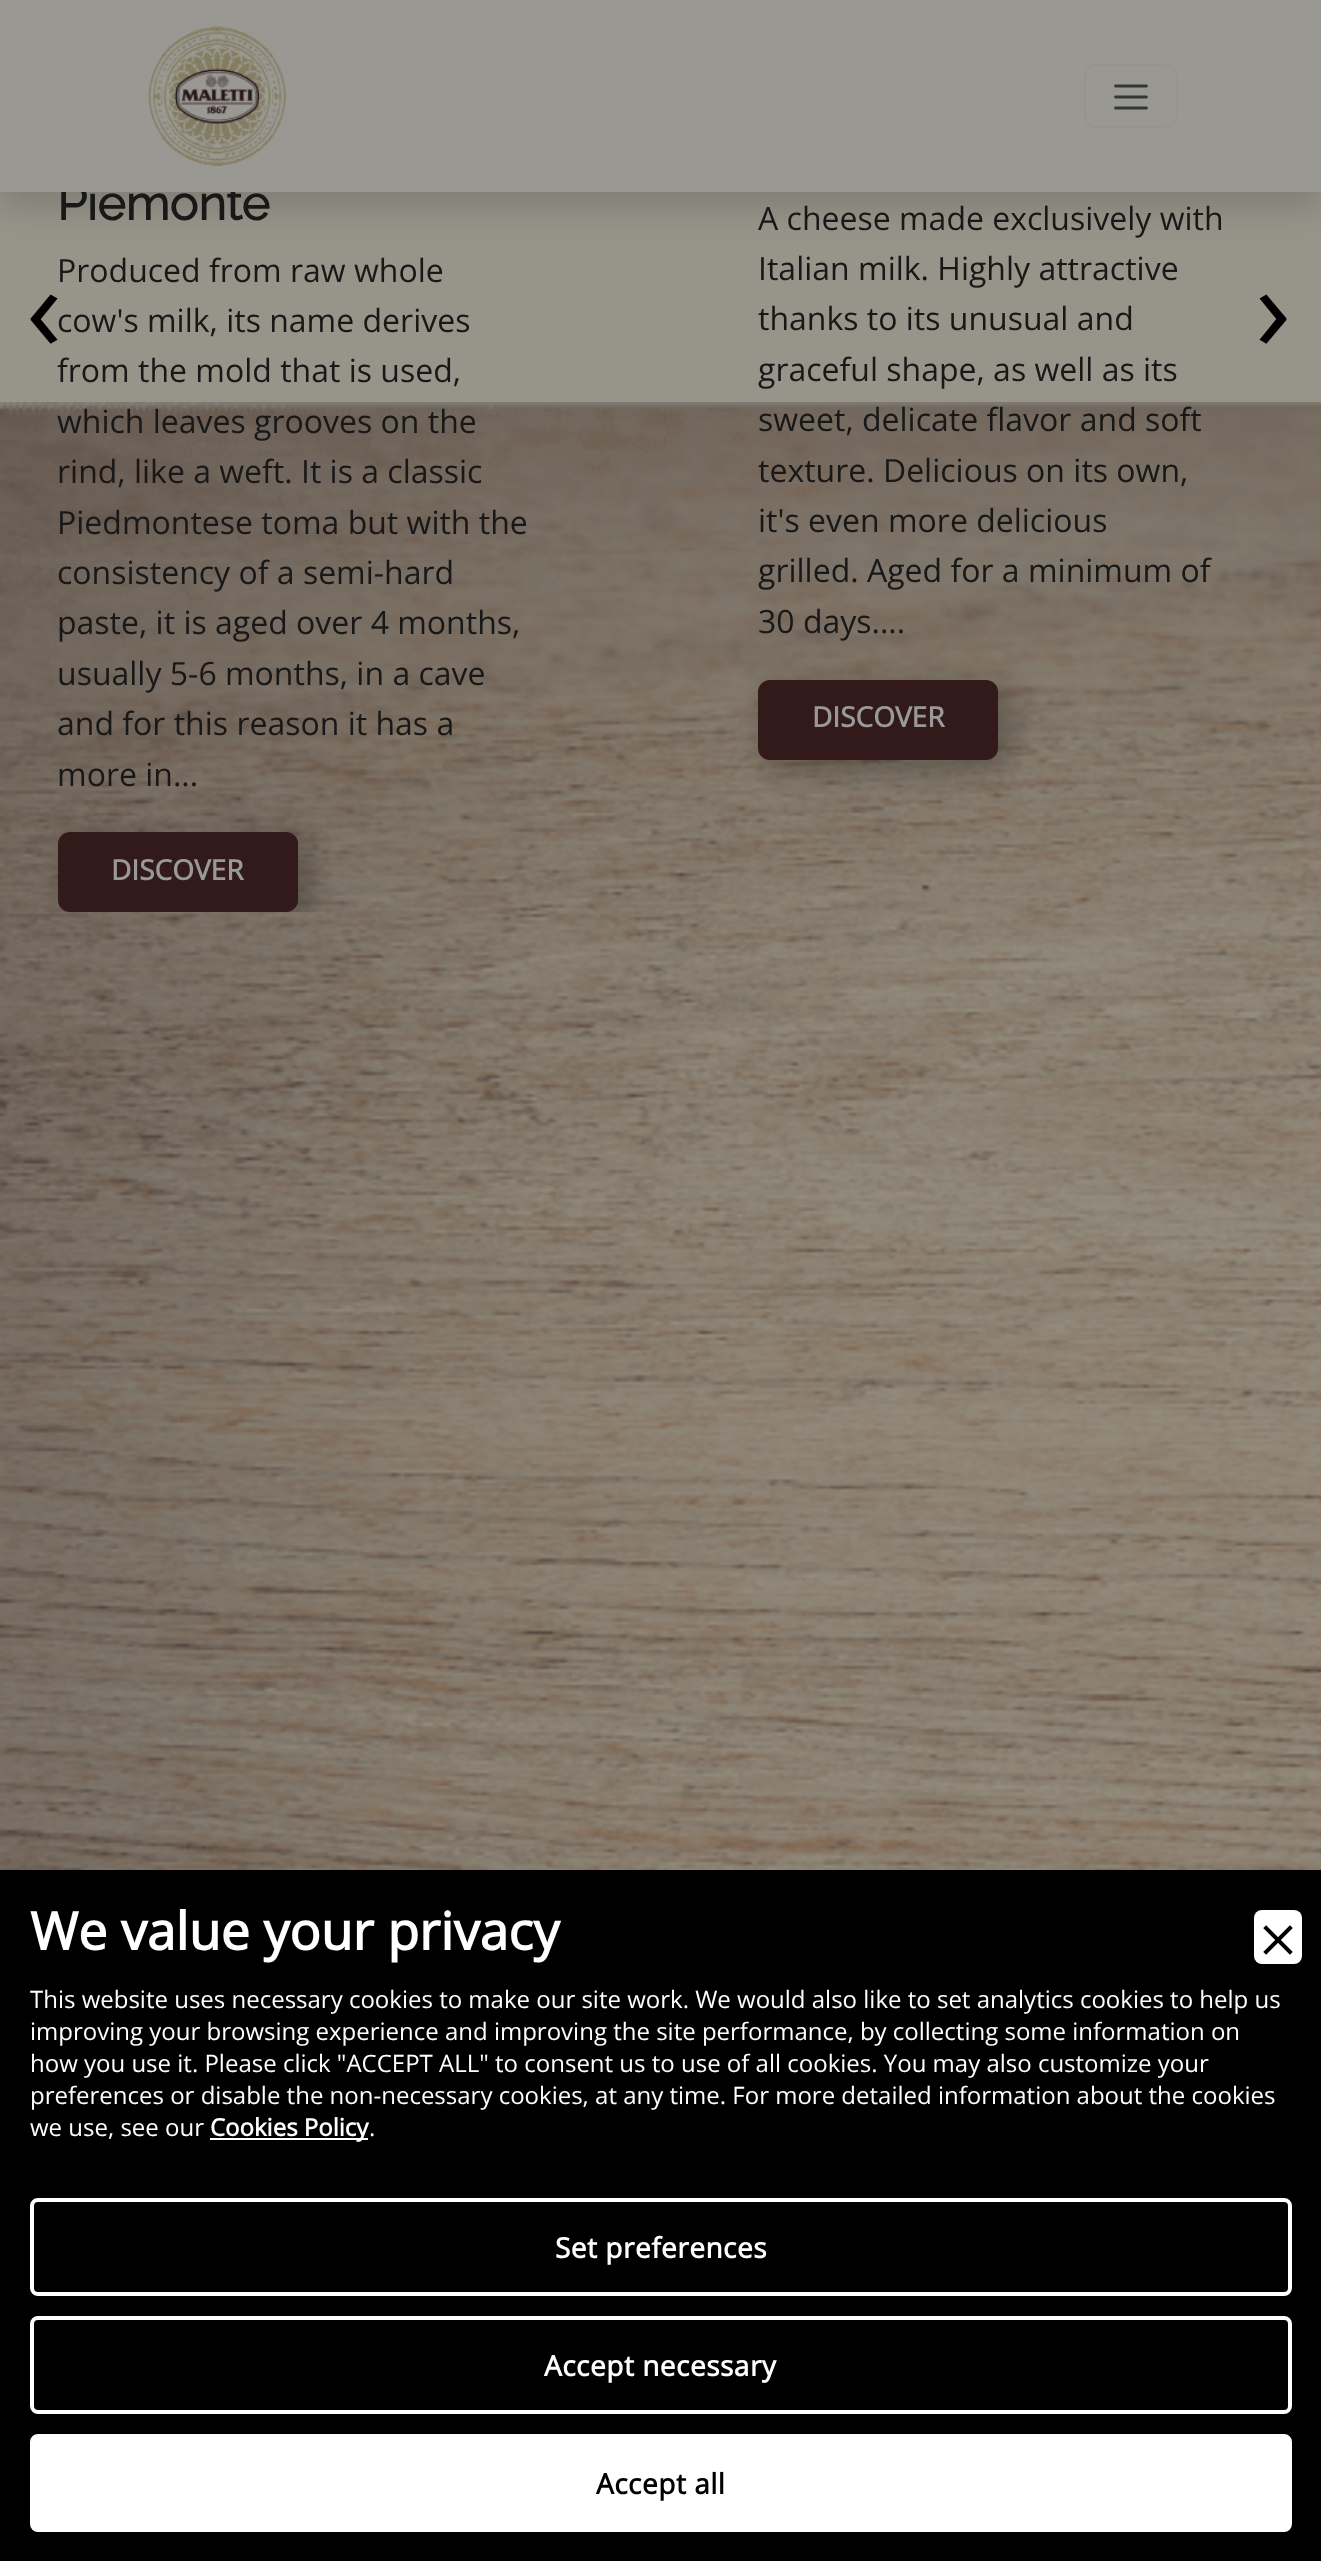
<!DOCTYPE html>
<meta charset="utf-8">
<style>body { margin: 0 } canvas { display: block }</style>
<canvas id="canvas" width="1321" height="2561"></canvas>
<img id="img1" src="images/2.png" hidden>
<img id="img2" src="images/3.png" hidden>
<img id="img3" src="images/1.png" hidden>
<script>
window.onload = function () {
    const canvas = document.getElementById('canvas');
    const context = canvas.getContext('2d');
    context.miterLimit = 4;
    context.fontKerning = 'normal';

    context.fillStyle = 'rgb(151, 149, 138)';
    context.fillRect(0, 0, 1321, 2561);
    context.fillStyle = 'rgba(0, 0, 0, 0.15)';
    context.filter = 'blur(16px)';
    context.beginPath();
    context.rect(0, 16, 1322, 192);
    context.fill();
    context.filter = 'none';
    context.fillStyle = 'rgb(153, 152, 146)';
    context.fillRect(0, 402, 1321, 1466);
    context.drawImage(document.getElementById('img1'), 0, 402, 1321, 1468);
    context.save();
    context.beginPath();
    context.rect(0, 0, 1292, 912);
    context.clip();
    context.fillStyle = 'rgba(0, 0, 0, 0.25)';
    context.filter = 'blur(15px)';
    context.beginPath();
    context.roundRect(64, 838, 248, 88, 16);
    context.fill();
    context.filter = 'none';
    context.restore();
    context.fillStyle = 'rgb(50, 26, 26)';
    context.beginPath();
    context.roundRect(58, 832, 240, 80, 12);
    context.fill();
    context.fillStyle = 'rgba(0, 0, 0, 0.25)';
    context.filter = 'blur(15px)';
    context.beginPath();
    context.roundRect(764, 686, 248, 88, 16);
    context.fill();
    context.filter = 'none';
    context.fillStyle = 'rgb(50, 26, 26)';
    context.beginPath();
    context.roundRect(758, 680, 240, 80, 12);
    context.fill();
    context.fillStyle = 'rgb(0, 0, 0)';
    context.fillRect(0, 1870, 1321, 691);
    context.fillStyle = 'rgb(255, 255, 255)';
    context.beginPath();
    context.roundRect(1254, 1910, 48, 54, 8);
    context.fill();
    context.drawImage(document.getElementById('img2'), 1263, 1925, 30, 30);
    context.fillRect(210, 2138, 158, 2);
    context.beginPath();
    context.roundRect(32, 2200, 1258, 94, 6);
    context.strokeStyle = 'rgb(255, 255, 255)';
    context.lineWidth = 4;
    context.stroke();
    context.beginPath();
    context.roundRect(32, 2318, 1258, 94, 6);
    context.stroke();
    context.beginPath();
    context.roundRect(32, 2436, 1258, 94, 6);
    context.fill();
    context.stroke();
    context.font = 'bold 48px Raleway';
    context.fillStyle = 'rgb(24, 24, 24)';
    context.fillText('Piemonte', 57, 220);
    context.fillStyle = 'rgb(153, 152, 146)';
    context.fillRect(0, 0, 1321, 192);
    context.beginPath();
    context.roundRect(1085, 65, 92, 62, 11);
    context.strokeStyle = 'rgb(149, 149, 150)';
    context.lineWidth = 2;
    context.stroke();
    context.beginPath();
    context.moveTo(1115.5, 86);
    context.lineTo(1146.5, 86);
    context.moveTo(1115.5, 97);
    context.lineTo(1146.5, 97);
    context.moveTo(1115.5, 108);
    context.lineTo(1146.5, 108);
    context.strokeStyle = 'rgb(53, 55, 55)';
    context.lineWidth = 2.8;
    context.lineCap = 'round';
    context.stroke();
    context.drawImage(document.getElementById('img3'), 148, 26, 139, 140);
    context.font = '32px Open Sans';
    context.fillStyle = 'rgb(24, 24, 24)';
    context.fillText('Produced from raw whole', 57, 282);
    context.fillText('cow\'s milk, its name derives', 57, 332);
    context.fillText('from the mold that is used,', 57, 382);
    context.fillText('which leaves grooves on the', 57, 433);
    context.fillText('rind, like a weft. It is a classic', 57, 483);
    context.fillText('Piedmontese toma but with the', 57, 534);
    context.fillText('consistency of a semi-hard', 57, 584);
    context.fillText('paste, it is aged over 4 months,', 57, 634);
    context.fillText('usually 5-6 months, in a cave', 57, 685);
    context.fillText('and for this reason it has a', 57, 735);
    context.fillText('more in...', 57, 786);
    context.font = 'bold 28px Open Sans';
    context.fillStyle = 'rgb(153, 153, 153)';
    context.fillText('DISCOVER', 111, 880);
    context.font = '32px Open Sans';
    context.fillStyle = 'rgb(24, 24, 24)';
    context.fillText('A cheese made exclusively with', 758, 230);
    context.fillText('Italian milk. Highly attractive', 758, 280);
    context.fillText('thanks to its unusual and', 758, 330);
    context.fillText('graceful shape, as well as its', 758, 381);
    context.fillText('sweet, delicate flavor and soft', 758, 431);
    context.fillText('texture. Delicious on its own,', 758, 482);
    context.fillText('it\'s even more delicious', 758, 532);
    context.fillText('grilled. Aged for a minimum of', 758, 582);
    context.fillText('30 days....', 758, 633);
    context.font = 'bold 28px Open Sans';
    context.fillStyle = 'rgb(153, 153, 153)';
    context.fillText('DISCOVER', 812, 727);
    context.font = '120px Open Sans';
    context.fillStyle = 'rgb(0, 0, 0)';
    context.fillText('‹', 26, 351);
    context.fillText('›', 1255, 351);
    context.font = 'bold 52px Open Sans';
    context.fillStyle = 'rgb(255, 255, 255)';
    context.fillText('We value your privacy', 30, 1950);
    context.font = '24px Open Sans';
    context.fillText('This website uses necessary cookies to make our site work. We would also like to set analytics cookies to help us', 30, 2008);
    context.fillText('improving your browsing experience and improving the site performance, by collecting some information on', 30, 2040);
    context.fillText('how you use it. Please click "ACCEPT ALL" to consent us to use of all cookies. You may also customize your', 30, 2072);
    context.fillText('preferences or disable the non-necessary cookies, at any time. For more detailed information about the cookies', 30, 2104);
    context.fillText('we use, see our', 30, 2136);
    context.font = 'bold 24px Open Sans';
    context.fillText('Cookies Policy', 210, 2136);
    context.font = '24px Open Sans';
    context.fillText('.', 369, 2136);
    context.letterSpacing = '0.5px';
    context.font = 'bold 28px Open Sans';
    context.fillText('Set preferences', 555, 2258);
    context.fillText('Accept necessary', 544, 2376);
    context.fillStyle = 'rgb(0, 0, 0)';
    context.fillText('Accept all', 596, 2494);
};
</script>
